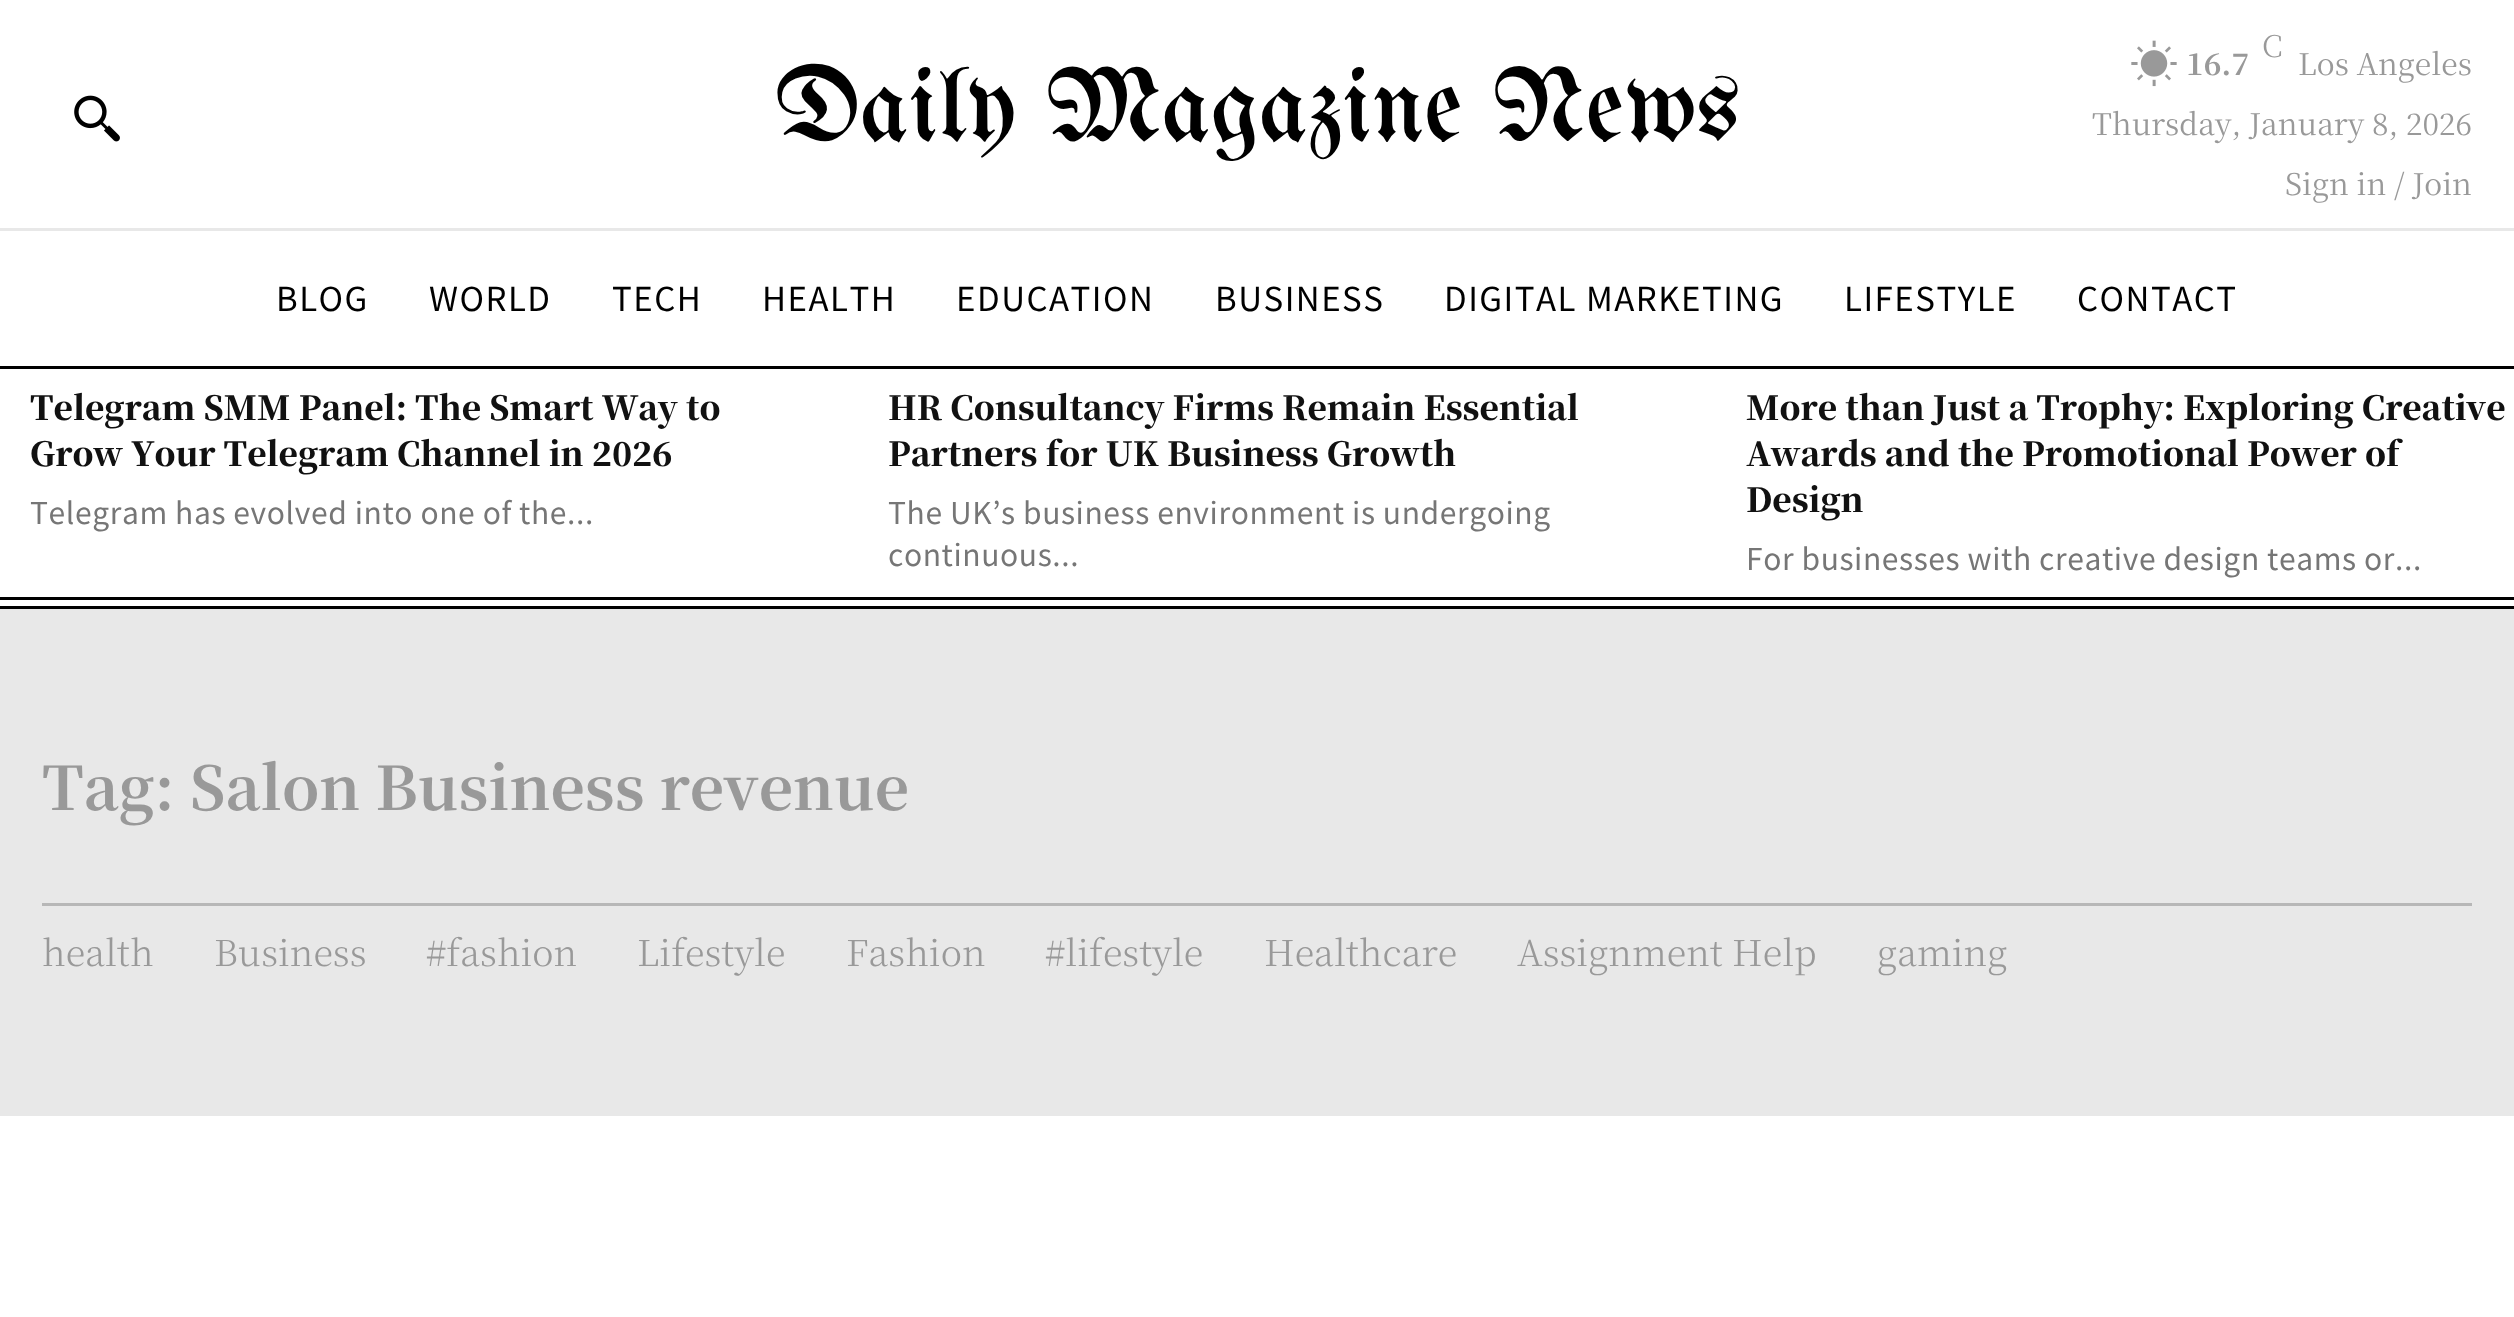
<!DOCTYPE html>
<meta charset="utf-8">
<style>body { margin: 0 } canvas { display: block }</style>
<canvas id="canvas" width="2514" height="1317"></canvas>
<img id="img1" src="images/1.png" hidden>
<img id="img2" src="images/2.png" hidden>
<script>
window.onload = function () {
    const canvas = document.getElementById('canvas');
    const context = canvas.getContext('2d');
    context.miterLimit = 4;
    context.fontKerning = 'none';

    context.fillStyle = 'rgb(255, 255, 255)';
    context.fillRect(0, 0, 2514, 1317);
    context.drawImage(document.getElementById('img1'), 74, 95, 46, 47);
    context.drawImage(document.getElementById('img2'), 2131, 40, 46, 47);
    context.fillStyle = 'rgb(232, 232, 232)';
    context.fillRect(0, 228, 2514, 3);
    context.fillStyle = 'rgb(0, 0, 0)';
    context.fillRect(0, 366, 2514, 3);
    context.fillRect(0, 606, 2514, 3);
    context.fillRect(0, 597, 2514, 3);
    context.fillStyle = 'rgb(232, 232, 232)';
    context.fillRect(0, 609, 2514, 507);
    context.fillStyle = 'rgb(183, 183, 183)';
    context.fillRect(42, 903, 2430, 3);
    context.font = '105px UnifrakturMaguntia';
    context.fillStyle = 'rgb(0, 0, 0)';
    context.fillText('Daily Magazine News', 775, 140);
    context.font = '300 30px Noto Serif JP';
    context.fillStyle = 'rgb(153, 153, 153)';
    context.fillText('C', 2262, 57);
    context.font = 'bold 30px Noto Serif JP';
    context.fillText('16.7', 2186, 75);
    context.font = '30px Noto Serif JP';
    context.fillText('Los Angeles', 2298, 75);
    context.fillText('Thursday, January 8, 2026', 2092, 135);
    context.fillText('Sign in / Join', 2285, 195);
    context.letterSpacing = '1.5px';
    context.font = '100 33px Noto Sans JP';
    context.fillStyle = 'rgb(0, 0, 0)';
    context.fillText('BLOG', 276, 311);
    context.fillText('WORLD', 429, 311);
    context.fillText('TECH', 612, 311);
    context.fillText('HEALTH', 762, 311);
    context.fillText('EDUCATION', 956, 311);
    context.fillText('BUSINESS', 1215, 311);
    context.fillText('DIGITAL MARKETING', 1444, 311);
    context.fillText('LIFESTYLE', 1844, 311);
    context.fillText('CONTACT', 2077, 311);
    context.letterSpacing = '0px';
    context.font = '900 33px Noto Serif JP';
    context.fillStyle = 'rgb(17, 17, 17)';
    context.fillText('Telegram SMM Panel: The Smart Way', 30, 420);
    context.fillText('to', 686, 420);
    context.fillText('Grow Your Telegram', 30, 466);
    context.fillText('Channel in 2026', 397, 466);
    context.letterSpacing = '0.6px';
    context.font = '100 30px Noto Sans JP';
    context.fillStyle = 'rgb(118, 118, 118)';
    context.fillText('Telegram has evolved into one of the...', 30, 524);
    context.letterSpacing = '0px';
    context.font = '900 33px Noto Serif JP';
    context.fillStyle = 'rgb(17, 17, 17)';
    context.fillText('HR Consultancy Firms Remain Essential', 888, 420);
    context.fillText('Partners for UK Business Growth', 888, 466);
    context.letterSpacing = '0.6px';
    context.font = '100 30px Noto Sans JP';
    context.fillStyle = 'rgb(118, 118, 118)';
    context.fillText('The UK’s business environment is undergoing', 888, 524);
    context.fillText('continuous...', 888, 566);
    context.letterSpacing = '0px';
    context.font = '900 33px Noto Serif JP';
    context.fillStyle = 'rgb(17, 17, 17)';
    context.fillText('More than Just a Trophy:', 1746, 420);
    context.fillText('Exploring Creative', 2183, 420);
    context.fillText('Awards and the Promotional Power', 1746, 466);
    context.fillText('of', 2365, 466);
    context.fillText('Design', 1746, 512);
    context.letterSpacing = '0.6px';
    context.font = '100 30px Noto Sans JP';
    context.fillStyle = 'rgb(118, 118, 118)';
    context.fillText('For businesses with creative design teams or...', 1746, 570);
    context.letterSpacing = '0px';
    context.font = 'bold 60px Noto Serif JP';
    context.fillStyle = 'rgb(153, 153, 153)';
    context.fillText('Tag: Salon Business revenue', 42, 810);
    context.font = '300 36px Noto Serif JP';
    context.fillText('health', 42, 966);
    context.fillText('Business', 214, 966);
    context.fillText('#fashion', 426, 966);
    context.fillText('Lifestyle', 637, 966);
    context.fillText('Fashion', 846, 966);
    context.fillText('#lifestyle', 1045, 966);
    context.fillText('Healthcare', 1264, 966);
    context.fillText('Assignment Help', 1517, 966);
    context.fillText('gaming', 1877, 966);
};
</script>
